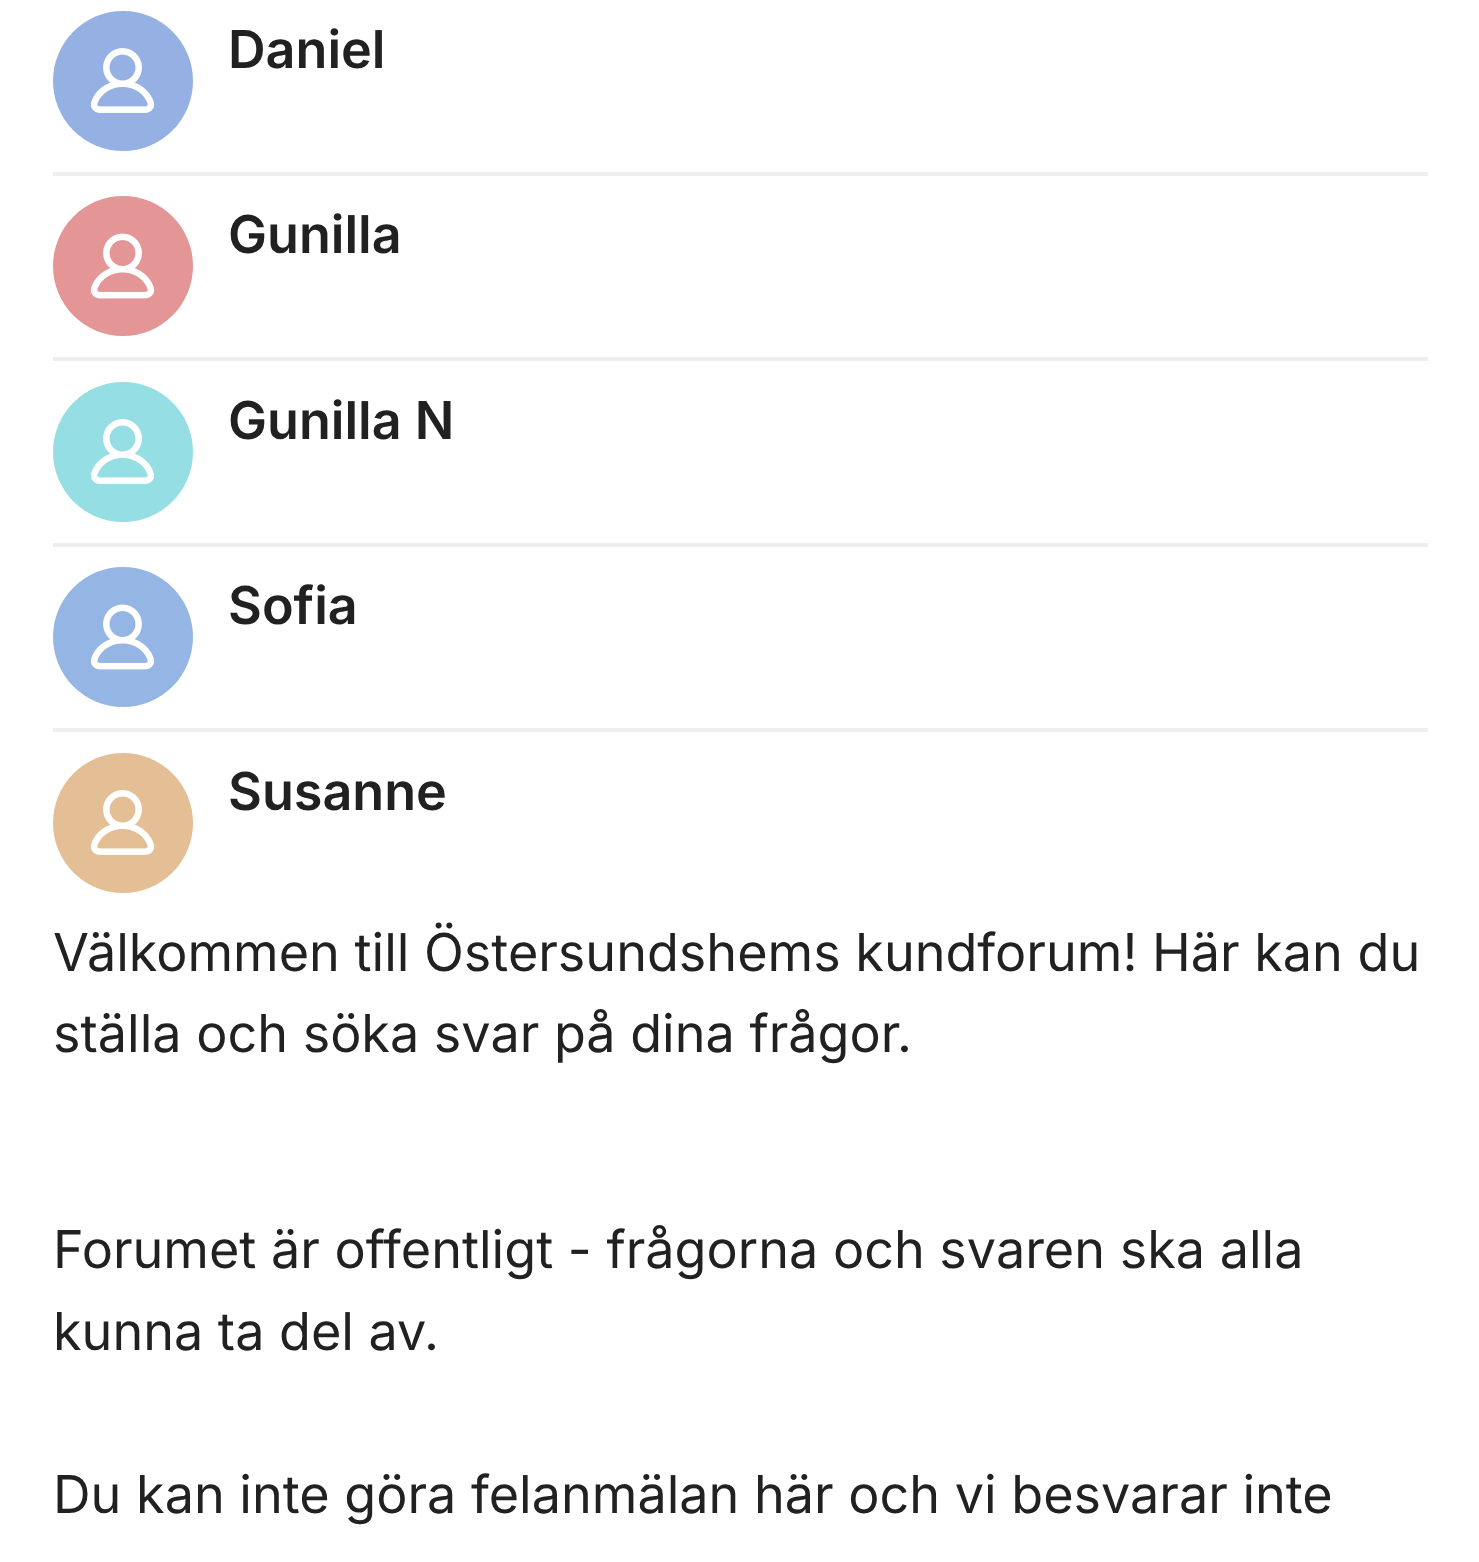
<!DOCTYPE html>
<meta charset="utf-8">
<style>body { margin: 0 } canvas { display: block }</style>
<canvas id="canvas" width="1479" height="1562"></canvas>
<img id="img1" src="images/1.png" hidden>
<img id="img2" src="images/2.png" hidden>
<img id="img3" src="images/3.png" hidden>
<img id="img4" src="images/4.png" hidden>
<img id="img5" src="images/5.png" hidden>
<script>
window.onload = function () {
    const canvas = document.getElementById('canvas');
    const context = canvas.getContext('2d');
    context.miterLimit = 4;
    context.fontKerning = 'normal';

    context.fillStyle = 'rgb(255, 255, 255)';
    context.fillRect(0, 0, 1479, 1562);
    context.fillStyle = 'rgb(149, 177, 228)';
    context.beginPath();
    context.arc(123, 81, 70, 0, 2 * Math.PI);
    context.fill();
    context.drawImage(document.getElementById('img1'), 90, 48, 65, 65);
    context.fillStyle = 'rgb(238, 238, 238)';
    context.fillRect(53, 172, 1375, 4);
    context.fillStyle = 'rgb(228, 149, 150)';
    context.beginPath();
    context.arc(123, 266, 70, 0, 2 * Math.PI);
    context.fill();
    context.drawImage(document.getElementById('img2'), 90, 233, 65, 66);
    context.fillStyle = 'rgb(238, 238, 238)';
    context.fillRect(53, 357, 1375, 4);
    context.fillStyle = 'rgb(149, 222, 228)';
    context.beginPath();
    context.arc(123, 452, 70, 0, 2 * Math.PI);
    context.fill();
    context.drawImage(document.getElementById('img3'), 90, 419, 65, 65);
    context.fillStyle = 'rgb(238, 238, 238)';
    context.fillRect(53, 543, 1375, 4);
    context.fillStyle = 'rgb(149, 181, 228)';
    context.beginPath();
    context.arc(123, 637, 70, 0, 2 * Math.PI);
    context.fill();
    context.drawImage(document.getElementById('img4'), 90, 604, 65, 66);
    context.fillStyle = 'rgb(238, 238, 238)';
    context.fillRect(53, 728, 1375, 4);
    context.fillStyle = 'rgb(228, 191, 149)';
    context.beginPath();
    context.arc(123, 823, 70, 0, 2 * Math.PI);
    context.fill();
    context.drawImage(document.getElementById('img5'), 90, 790, 65, 65);
    context.font = '600 52.1px Inter';
    context.fillStyle = 'rgb(33, 33, 33)';
    context.fillText('Daniel', 228, 68);
    context.fillText('Gunilla', 228, 253);
    context.fillText('Gunilla N', 228, 439);
    context.fillText('Sofia', 228, 624);
    context.fillText('Susanne', 228, 810);
    context.font = '52.1px Inter';
    context.fillText('Välkommen till Östersundshems kundforum! Här kan du', 53, 971);
    context.fillText('ställa och söka svar på dina frågor.', 53, 1052);
    context.fillText('Forumet är offentligt - frågorna och svaren ska alla', 53, 1268);
    context.fillText('kunna ta del av.', 53, 1350);
    context.fillText('Du kan inte göra felanmälan här och vi besvarar inte', 53, 1513);
};
</script>
